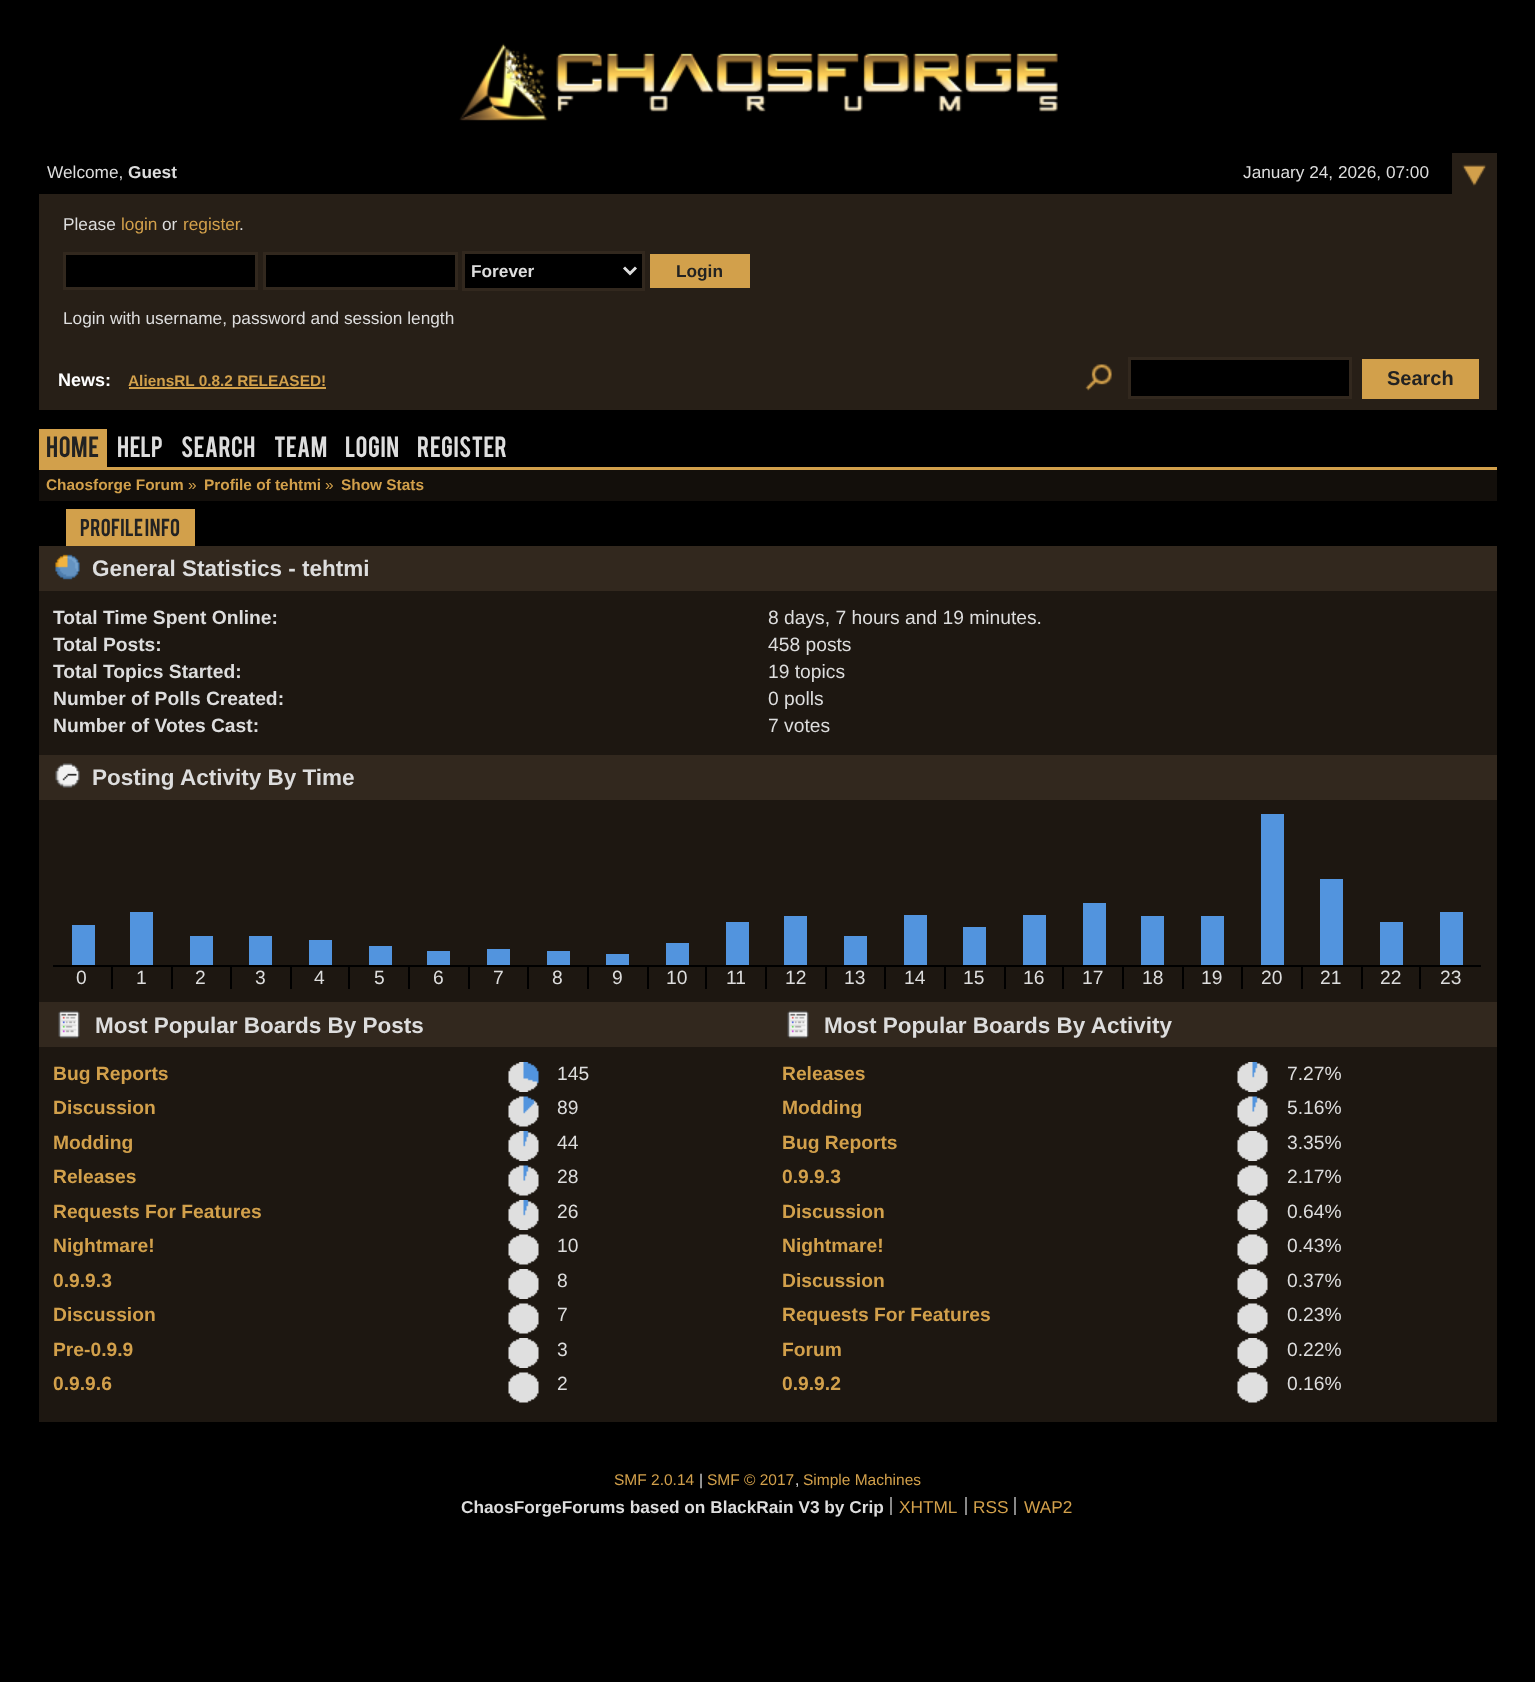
<!DOCTYPE html>
<meta charset="utf-8">
<style>body { margin: 0 } canvas { display: block }</style>
<canvas id="canvas" width="1535" height="1682"></canvas>
<img id="img1" src="images/1.png" hidden>
<img id="img2" src="images/2.png" hidden>
<img id="img3" src="images/3.png" hidden>
<img id="img4" src="images/4.png" hidden>
<img id="img5" src="images/5.png" hidden>
<img id="img6" src="images/6.png" hidden>
<img id="img7" src="images/7.png" hidden>
<img id="img8" src="images/8.png" hidden>
<img id="img9" src="images/9.png" hidden>
<img id="img10" src="images/10.png" hidden>
<img id="img11" src="images/11.png" hidden>
<img id="img12" src="images/12.png" hidden>
<script>
window.onload = function () {
    const canvas = document.getElementById('canvas');
    const context = canvas.getContext('2d');
    context.miterLimit = 4;
    context.fontKerning = 'normal';

    context.fillStyle = 'rgb(0, 0, 0)';
    context.fillRect(0, 0, 1535, 1682);
    context.drawImage(document.getElementById('img1'), 459, 43, 599, 78);
    context.drawImage(document.getElementById('img2'), 1452, 153, 45, 41);
    context.fillStyle = 'rgb(39, 31, 23)';
    context.fillRect(39, 194, 1458, 216);
    context.fillStyle = 'rgb(0, 0, 0)';
    context.beginPath();
    context.rect(64.5, 253.5, 192, 35);
    context.fill();
    context.strokeStyle = 'rgb(50, 40, 30)';
    context.lineWidth = 3;
    context.stroke();
    context.beginPath();
    context.rect(264.5, 253.5, 192, 35);
    context.fill();
    context.stroke();
    context.beginPath();
    context.rect(463.5, 252.5, 180, 37);
    context.fill();
    context.stroke();
    context.beginPath();
    context.moveTo(624, 267.5);
    context.lineTo(630, 273.5);
    context.lineTo(636, 267.5);
    context.strokeStyle = 'rgb(221, 221, 221)';
    context.stroke();
    context.fillStyle = 'rgb(210, 160, 75)';
    context.fillRect(650, 254, 100, 34);
    context.fillRect(129, 387, 197, 2);
    context.drawImage(document.getElementById('img3'), 1085, 364, 27, 27);
    context.fillStyle = 'rgb(0, 0, 0)';
    context.beginPath();
    context.rect(1129.5, 358.5, 221, 39);
    context.fill();
    context.strokeStyle = 'rgb(50, 40, 30)';
    context.stroke();
    context.fillStyle = 'rgb(210, 160, 75)';
    context.fillRect(1362, 359, 117, 40);
    context.fillRect(39, 467, 1458, 3);
    context.fillRect(39, 429, 68, 38);
    context.fillStyle = 'rgb(19, 15, 11)';
    context.fillRect(39, 470, 1458, 31);
    context.fillStyle = 'rgb(210, 160, 75)';
    context.fillRect(66, 509, 129, 37);
    context.fillStyle = 'rgb(50, 40, 30)';
    context.fillRect(39, 546, 1458, 45);
    context.drawImage(document.getElementById('img4'), 55, 554, 25, 26);
    context.fillStyle = 'rgb(29, 23, 17)';
    context.fillRect(39, 591, 1458, 164);
    context.fillStyle = 'rgb(50, 40, 30)';
    context.fillRect(39, 755, 1458, 45);
    context.drawImage(document.getElementById('img5'), 55, 763, 25, 25);
    context.fillStyle = 'rgb(29, 23, 17)';
    context.fillRect(39, 800, 1458, 202);
    context.fillStyle = 'rgb(82, 148, 222)';
    context.fillRect(72, 925, 23, 40);
    context.fillStyle = 'rgb(0, 0, 0)';
    context.fillRect(53, 965, 178, 2);
    context.fillRect(111, 965, 2, 24);
    context.fillStyle = 'rgb(82, 148, 222)';
    context.fillRect(130, 912, 23, 53);
    context.fillStyle = 'rgb(0, 0, 0)';
    context.fillRect(171, 965, 2, 24);
    context.fillStyle = 'rgb(82, 148, 222)';
    context.fillRect(190, 936, 23, 29);
    context.fillStyle = 'rgb(0, 0, 0)';
    context.fillRect(230, 965, 2, 24);
    context.fillStyle = 'rgb(82, 148, 222)';
    context.fillRect(249, 936, 23, 29);
    context.fillStyle = 'rgb(0, 0, 0)';
    context.fillRect(231, 965, 60, 2);
    context.fillRect(290, 965, 2, 24);
    context.fillStyle = 'rgb(82, 148, 222)';
    context.fillRect(309, 940, 23, 25);
    context.fillStyle = 'rgb(0, 0, 0)';
    context.fillRect(291, 965, 237, 2);
    context.fillRect(348, 965, 2, 24);
    context.fillStyle = 'rgb(82, 148, 222)';
    context.fillRect(369, 946, 23, 19);
    context.fillStyle = 'rgb(0, 0, 0)';
    context.fillRect(408, 965, 2, 24);
    context.fillStyle = 'rgb(82, 148, 222)';
    context.fillRect(427, 951, 23, 14);
    context.fillStyle = 'rgb(0, 0, 0)';
    context.fillRect(468, 965, 2, 24);
    context.fillStyle = 'rgb(82, 148, 222)';
    context.fillRect(487, 949, 23, 16);
    context.fillStyle = 'rgb(0, 0, 0)';
    context.fillRect(527, 965, 2, 24);
    context.fillStyle = 'rgb(82, 148, 222)';
    context.fillRect(547, 951, 23, 14);
    context.fillStyle = 'rgb(0, 0, 0)';
    context.fillRect(528, 965, 60, 2);
    context.fillRect(587, 965, 2, 24);
    context.fillStyle = 'rgb(82, 148, 222)';
    context.fillRect(606, 954, 23, 11);
    context.fillStyle = 'rgb(0, 0, 0)';
    context.fillRect(588, 965, 60, 2);
    context.fillRect(647, 965, 2, 24);
    context.fillStyle = 'rgb(82, 148, 222)';
    context.fillRect(666, 943, 23, 22);
    context.fillStyle = 'rgb(0, 0, 0)';
    context.fillRect(648, 965, 237, 2);
    context.fillRect(705, 965, 2, 24);
    context.fillStyle = 'rgb(82, 148, 222)';
    context.fillRect(726, 922, 23, 43);
    context.fillStyle = 'rgb(0, 0, 0)';
    context.fillRect(765, 965, 2, 24);
    context.fillStyle = 'rgb(82, 148, 222)';
    context.fillRect(784, 916, 23, 49);
    context.fillStyle = 'rgb(0, 0, 0)';
    context.fillRect(825, 965, 2, 24);
    context.fillStyle = 'rgb(82, 148, 222)';
    context.fillRect(844, 936, 23, 29);
    context.fillStyle = 'rgb(0, 0, 0)';
    context.fillRect(884, 965, 2, 24);
    context.fillStyle = 'rgb(82, 148, 222)';
    context.fillRect(904, 915, 23, 50);
    context.fillStyle = 'rgb(0, 0, 0)';
    context.fillRect(885, 965, 60, 2);
    context.fillRect(944, 965, 2, 24);
    context.fillStyle = 'rgb(82, 148, 222)';
    context.fillRect(963, 927, 23, 38);
    context.fillStyle = 'rgb(0, 0, 0)';
    context.fillRect(945, 965, 60, 2);
    context.fillRect(1004, 965, 2, 24);
    context.fillStyle = 'rgb(82, 148, 222)';
    context.fillRect(1023, 915, 23, 50);
    context.fillStyle = 'rgb(0, 0, 0)';
    context.fillRect(1005, 965, 237, 2);
    context.fillRect(1062, 965, 2, 24);
    context.fillStyle = 'rgb(82, 148, 222)';
    context.fillRect(1083, 903, 23, 62);
    context.fillStyle = 'rgb(0, 0, 0)';
    context.fillRect(1122, 965, 2, 24);
    context.fillStyle = 'rgb(82, 148, 222)';
    context.fillRect(1141, 916, 23, 49);
    context.fillStyle = 'rgb(0, 0, 0)';
    context.fillRect(1182, 965, 2, 24);
    context.fillStyle = 'rgb(82, 148, 222)';
    context.fillRect(1201, 916, 23, 49);
    context.fillStyle = 'rgb(0, 0, 0)';
    context.fillRect(1241, 965, 2, 24);
    context.fillStyle = 'rgb(82, 148, 222)';
    context.fillRect(1261, 814, 23, 151);
    context.fillStyle = 'rgb(0, 0, 0)';
    context.fillRect(1242, 965, 60, 2);
    context.fillRect(1301, 965, 2, 24);
    context.fillStyle = 'rgb(82, 148, 222)';
    context.fillRect(1320, 879, 23, 86);
    context.fillStyle = 'rgb(0, 0, 0)';
    context.fillRect(1302, 965, 60, 2);
    context.fillRect(1361, 965, 2, 24);
    context.fillStyle = 'rgb(82, 148, 222)';
    context.fillRect(1380, 922, 23, 43);
    context.fillStyle = 'rgb(0, 0, 0)';
    context.fillRect(1362, 965, 119, 2);
    context.fillRect(1419, 965, 2, 24);
    context.fillStyle = 'rgb(82, 148, 222)';
    context.fillRect(1440, 912, 23, 53);
    context.fillStyle = 'rgb(50, 40, 30)';
    context.fillRect(39, 1002, 1458, 45);
    context.drawImage(document.getElementById('img6'), 58, 1010, 22, 29);
    context.fillStyle = 'rgb(29, 23, 17)';
    context.fillRect(39, 1047, 1458, 375);
    context.drawImage(document.getElementById('img7'), 508, 1062, 31, 30);
    context.drawImage(document.getElementById('img8'), 508, 1096, 31, 31);
    context.drawImage(document.getElementById('img9'), 508, 1131, 31, 30);
    context.drawImage(document.getElementById('img10'), 508, 1165, 31, 31);
    context.drawImage(document.getElementById('img9'), 508, 1200, 31, 30);
    context.drawImage(document.getElementById('img11'), 508, 1234, 31, 31);
    context.drawImage(document.getElementById('img12'), 508, 1269, 31, 30);
    context.drawImage(document.getElementById('img11'), 508, 1303, 31, 31);
    context.drawImage(document.getElementById('img12'), 508, 1338, 31, 30);
    context.drawImage(document.getElementById('img11'), 508, 1372, 31, 31);
    context.drawImage(document.getElementById('img6'), 787, 1010, 22, 29);
    context.drawImage(document.getElementById('img9'), 1237, 1062, 31, 30);
    context.drawImage(document.getElementById('img10'), 1237, 1096, 31, 31);
    context.drawImage(document.getElementById('img12'), 1237, 1131, 31, 30);
    context.drawImage(document.getElementById('img11'), 1237, 1165, 31, 31);
    context.drawImage(document.getElementById('img12'), 1237, 1200, 31, 30);
    context.drawImage(document.getElementById('img11'), 1237, 1234, 31, 31);
    context.drawImage(document.getElementById('img12'), 1237, 1269, 31, 30);
    context.drawImage(document.getElementById('img11'), 1237, 1303, 31, 31);
    context.drawImage(document.getElementById('img12'), 1237, 1338, 31, 30);
    context.drawImage(document.getElementById('img11'), 1237, 1372, 31, 31);
    context.fillStyle = 'rgb(136, 136, 136)';
    context.fillRect(890, 1497, 2, 18);
    context.fillRect(965, 1497, 2, 18);
    context.fillRect(1014, 1497, 2, 18);
    context.font = '17.25px Liberation Sans';
    context.fillStyle = 'rgb(221, 221, 221)';
    context.fillText('Welcome,', 47, 178);
    context.font = 'bold 17.25px Liberation Sans';
    context.fillText('Guest', 128, 178);
    context.font = '17.25px Liberation Sans';
    context.fillText('January 24, 2026, 07:00', 1243, 178);
    context.fillText('Please', 63, 230);
    context.fillStyle = 'rgb(210, 160, 75)';
    context.fillText('login', 121, 230);
    context.fillStyle = 'rgb(221, 221, 221)';
    context.fillText('or', 162, 230);
    context.fillStyle = 'rgb(210, 160, 75)';
    context.fillText('register', 183, 230);
    context.fillStyle = 'rgb(221, 221, 221)';
    context.fillText('.', 239, 230);
    context.font = 'bold 17.25px Liberation Sans';
    context.fillText('Forever', 471, 277);
    context.fillStyle = 'rgb(34, 34, 34)';
    context.fillText('Login', 676, 277);
    context.font = '17.25px Liberation Sans';
    context.fillStyle = 'rgb(221, 221, 221)';
    context.fillText('Login with username, password and session length', 63, 324);
    context.font = 'bold 18px Liberation Sans';
    context.fillStyle = 'rgb(255, 255, 255)';
    context.fillText('News:', 58, 386);
    context.font = 'bold 15.4px Liberation Sans';
    context.fillStyle = 'rgb(210, 160, 75)';
    context.fillText('AliensRL 0.8.2 RELEASED!', 128, 386);
    context.font = 'bold 20px Liberation Sans';
    context.fillStyle = 'rgb(34, 34, 34)';
    context.fillText('Search', 1387, 385);
    context.font = '23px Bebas';
    context.fillText('Home', 46, 457);
    context.fillStyle = 'rgb(221, 221, 221)';
    context.fillText('Help', 117, 457);
    context.fillText('Search', 181, 457);
    context.fillText('Team', 274, 457);
    context.fillText('Login', 345, 457);
    context.fillText('Register', 417, 457);
    context.font = 'bold 15.4px Liberation Sans';
    context.fillStyle = 'rgb(210, 160, 75)';
    context.fillText('Chaosforge Forum', 46, 490);
    context.font = '15.4px Liberation Sans';
    context.fillText('»', 188, 490);
    context.font = 'bold 15.4px Liberation Sans';
    context.fillText('Profile of tehtmi', 204, 490);
    context.font = '15.4px Liberation Sans';
    context.fillText('»', 325, 490);
    context.font = 'bold 15.4px Liberation Sans';
    context.fillText('Show Stats', 341, 490);
    context.font = '19.25px Bebas';
    context.fillStyle = 'rgb(34, 34, 34)';
    context.fillText('Profile Info', 80, 536);
    context.font = 'bold 22.5px Liberation Sans';
    context.fillStyle = 'rgb(221, 221, 221)';
    context.fillText('General Statistics - tehtmi', 92, 576);
    context.font = 'bold 19.25px Liberation Sans';
    context.fillText('Total Time Spent Online:', 53, 624);
    context.font = '19.25px Liberation Sans';
    context.fillText('8 days, 7 hours and 19 minutes.', 768, 624);
    context.font = 'bold 19.25px Liberation Sans';
    context.fillText('Total Posts:', 53, 651);
    context.font = '19.25px Liberation Sans';
    context.fillText('458 posts', 768, 651);
    context.font = 'bold 19.25px Liberation Sans';
    context.fillText('Total Topics Started:', 53, 678);
    context.font = '19.25px Liberation Sans';
    context.fillText('19 topics', 768, 678);
    context.font = 'bold 19.25px Liberation Sans';
    context.fillText('Number of Polls Created:', 53, 705);
    context.font = '19.25px Liberation Sans';
    context.fillText('0 polls', 768, 705);
    context.font = 'bold 19.25px Liberation Sans';
    context.fillText('Number of Votes Cast:', 53, 732);
    context.font = '19.25px Liberation Sans';
    context.fillText('7 votes', 768, 732);
    context.font = 'bold 22.5px Liberation Sans';
    context.fillText('Posting Activity By Time', 92, 785);
    context.font = '19.25px Liberation Sans';
    context.fillText('0', 76, 984);
    context.fillText('1', 136, 984);
    context.fillText('2', 195, 984);
    context.fillText('3', 255, 984);
    context.fillText('4', 314, 984);
    context.fillText('5', 374, 984);
    context.fillText('6', 433, 984);
    context.fillText('7', 493, 984);
    context.fillText('8', 552, 984);
    context.fillText('9', 612, 984);
    context.fillText('10', 666, 984);
    context.fillText('11', 726, 984);
    context.fillText('12', 785, 984);
    context.fillText('13', 844, 984);
    context.fillText('14', 904, 984);
    context.fillText('15', 963, 984);
    context.fillText('16', 1023, 984);
    context.fillText('17', 1082, 984);
    context.fillText('18', 1142, 984);
    context.fillText('19', 1201, 984);
    context.fillText('20', 1261, 984);
    context.fillText('21', 1320, 984);
    context.fillText('22', 1380, 984);
    context.fillText('23', 1440, 984);
    context.font = 'bold 22.5px Liberation Sans';
    context.fillText('Most Popular Boards By Posts', 95, 1033);
    context.font = 'bold 19.25px Liberation Sans';
    context.fillStyle = 'rgb(210, 160, 75)';
    context.fillText('Bug Reports', 53, 1080);
    context.font = '19.25px Liberation Sans';
    context.fillStyle = 'rgb(221, 221, 221)';
    context.fillText('145', 557, 1080);
    context.font = 'bold 19.25px Liberation Sans';
    context.fillStyle = 'rgb(210, 160, 75)';
    context.fillText('Discussion', 53, 1114);
    context.font = '19.25px Liberation Sans';
    context.fillStyle = 'rgb(221, 221, 221)';
    context.fillText('89', 557, 1114);
    context.font = 'bold 19.25px Liberation Sans';
    context.fillStyle = 'rgb(210, 160, 75)';
    context.fillText('Modding', 53, 1149);
    context.font = '19.25px Liberation Sans';
    context.fillStyle = 'rgb(221, 221, 221)';
    context.fillText('44', 557, 1149);
    context.font = 'bold 19.25px Liberation Sans';
    context.fillStyle = 'rgb(210, 160, 75)';
    context.fillText('Releases', 53, 1183);
    context.font = '19.25px Liberation Sans';
    context.fillStyle = 'rgb(221, 221, 221)';
    context.fillText('28', 557, 1183);
    context.font = 'bold 19.25px Liberation Sans';
    context.fillStyle = 'rgb(210, 160, 75)';
    context.fillText('Requests For Features', 53, 1218);
    context.font = '19.25px Liberation Sans';
    context.fillStyle = 'rgb(221, 221, 221)';
    context.fillText('26', 557, 1218);
    context.font = 'bold 19.25px Liberation Sans';
    context.fillStyle = 'rgb(210, 160, 75)';
    context.fillText('Nightmare!', 53, 1252);
    context.font = '19.25px Liberation Sans';
    context.fillStyle = 'rgb(221, 221, 221)';
    context.fillText('10', 557, 1252);
    context.font = 'bold 19.25px Liberation Sans';
    context.fillStyle = 'rgb(210, 160, 75)';
    context.fillText('0.9.9.3', 53, 1287);
    context.font = '19.25px Liberation Sans';
    context.fillStyle = 'rgb(221, 221, 221)';
    context.fillText('8', 557, 1287);
    context.font = 'bold 19.25px Liberation Sans';
    context.fillStyle = 'rgb(210, 160, 75)';
    context.fillText('Discussion', 53, 1321);
    context.font = '19.25px Liberation Sans';
    context.fillStyle = 'rgb(221, 221, 221)';
    context.fillText('7', 557, 1321);
    context.font = 'bold 19.25px Liberation Sans';
    context.fillStyle = 'rgb(210, 160, 75)';
    context.fillText('Pre-0.9.9', 53, 1356);
    context.font = '19.25px Liberation Sans';
    context.fillStyle = 'rgb(221, 221, 221)';
    context.fillText('3', 557, 1356);
    context.font = 'bold 19.25px Liberation Sans';
    context.fillStyle = 'rgb(210, 160, 75)';
    context.fillText('0.9.9.6', 53, 1390);
    context.font = '19.25px Liberation Sans';
    context.fillStyle = 'rgb(221, 221, 221)';
    context.fillText('2', 557, 1390);
    context.font = 'bold 22.5px Liberation Sans';
    context.fillText('Most Popular Boards By Activity', 824, 1033);
    context.font = 'bold 19.25px Liberation Sans';
    context.fillStyle = 'rgb(210, 160, 75)';
    context.fillText('Releases', 782, 1080);
    context.font = '19.25px Liberation Sans';
    context.fillStyle = 'rgb(221, 221, 221)';
    context.fillText('7.27%', 1287, 1080);
    context.font = 'bold 19.25px Liberation Sans';
    context.fillStyle = 'rgb(210, 160, 75)';
    context.fillText('Modding', 782, 1114);
    context.font = '19.25px Liberation Sans';
    context.fillStyle = 'rgb(221, 221, 221)';
    context.fillText('5.16%', 1287, 1114);
    context.font = 'bold 19.25px Liberation Sans';
    context.fillStyle = 'rgb(210, 160, 75)';
    context.fillText('Bug Reports', 782, 1149);
    context.font = '19.25px Liberation Sans';
    context.fillStyle = 'rgb(221, 221, 221)';
    context.fillText('3.35%', 1287, 1149);
    context.font = 'bold 19.25px Liberation Sans';
    context.fillStyle = 'rgb(210, 160, 75)';
    context.fillText('0.9.9.3', 782, 1183);
    context.font = '19.25px Liberation Sans';
    context.fillStyle = 'rgb(221, 221, 221)';
    context.fillText('2.17%', 1287, 1183);
    context.font = 'bold 19.25px Liberation Sans';
    context.fillStyle = 'rgb(210, 160, 75)';
    context.fillText('Discussion', 782, 1218);
    context.font = '19.25px Liberation Sans';
    context.fillStyle = 'rgb(221, 221, 221)';
    context.fillText('0.64%', 1287, 1218);
    context.font = 'bold 19.25px Liberation Sans';
    context.fillStyle = 'rgb(210, 160, 75)';
    context.fillText('Nightmare!', 782, 1252);
    context.font = '19.25px Liberation Sans';
    context.fillStyle = 'rgb(221, 221, 221)';
    context.fillText('0.43%', 1287, 1252);
    context.font = 'bold 19.25px Liberation Sans';
    context.fillStyle = 'rgb(210, 160, 75)';
    context.fillText('Discussion', 782, 1287);
    context.font = '19.25px Liberation Sans';
    context.fillStyle = 'rgb(221, 221, 221)';
    context.fillText('0.37%', 1287, 1287);
    context.font = 'bold 19.25px Liberation Sans';
    context.fillStyle = 'rgb(210, 160, 75)';
    context.fillText('Requests For Features', 782, 1321);
    context.font = '19.25px Liberation Sans';
    context.fillStyle = 'rgb(221, 221, 221)';
    context.fillText('0.23%', 1287, 1321);
    context.font = 'bold 19.25px Liberation Sans';
    context.fillStyle = 'rgb(210, 160, 75)';
    context.fillText('Forum', 782, 1356);
    context.font = '19.25px Liberation Sans';
    context.fillStyle = 'rgb(221, 221, 221)';
    context.fillText('0.22%', 1287, 1356);
    context.font = 'bold 19.25px Liberation Sans';
    context.fillStyle = 'rgb(210, 160, 75)';
    context.fillText('0.9.9.2', 782, 1390);
    context.font = '19.25px Liberation Sans';
    context.fillStyle = 'rgb(221, 221, 221)';
    context.fillText('0.16%', 1287, 1390);
    context.font = '15.5px Liberation Sans';
    context.fillStyle = 'rgb(210, 160, 75)';
    context.fillText('SMF 2.0.14', 614, 1485);
    context.fillStyle = 'rgb(221, 221, 221)';
    context.fillText('|', 699, 1485);
    context.fillStyle = 'rgb(210, 160, 75)';
    context.fillText('SMF © 2017', 707, 1485);
    context.fillStyle = 'rgb(221, 221, 221)';
    context.fillText(',', 795, 1485);
    context.fillStyle = 'rgb(210, 160, 75)';
    context.fillText('Simple Machines', 803, 1485);
    context.font = 'bold 17.25px Liberation Sans';
    context.fillStyle = 'rgb(221, 221, 221)';
    context.fillText('ChaosForgeForums based on BlackRain V3 by Crip', 461, 1513);
    context.font = '17.25px Liberation Sans';
    context.fillStyle = 'rgb(210, 160, 75)';
    context.fillText('XHTML', 899, 1513);
    context.fillText('RSS', 973, 1513);
    context.fillText('WAP2', 1024, 1513);
};
</script>
